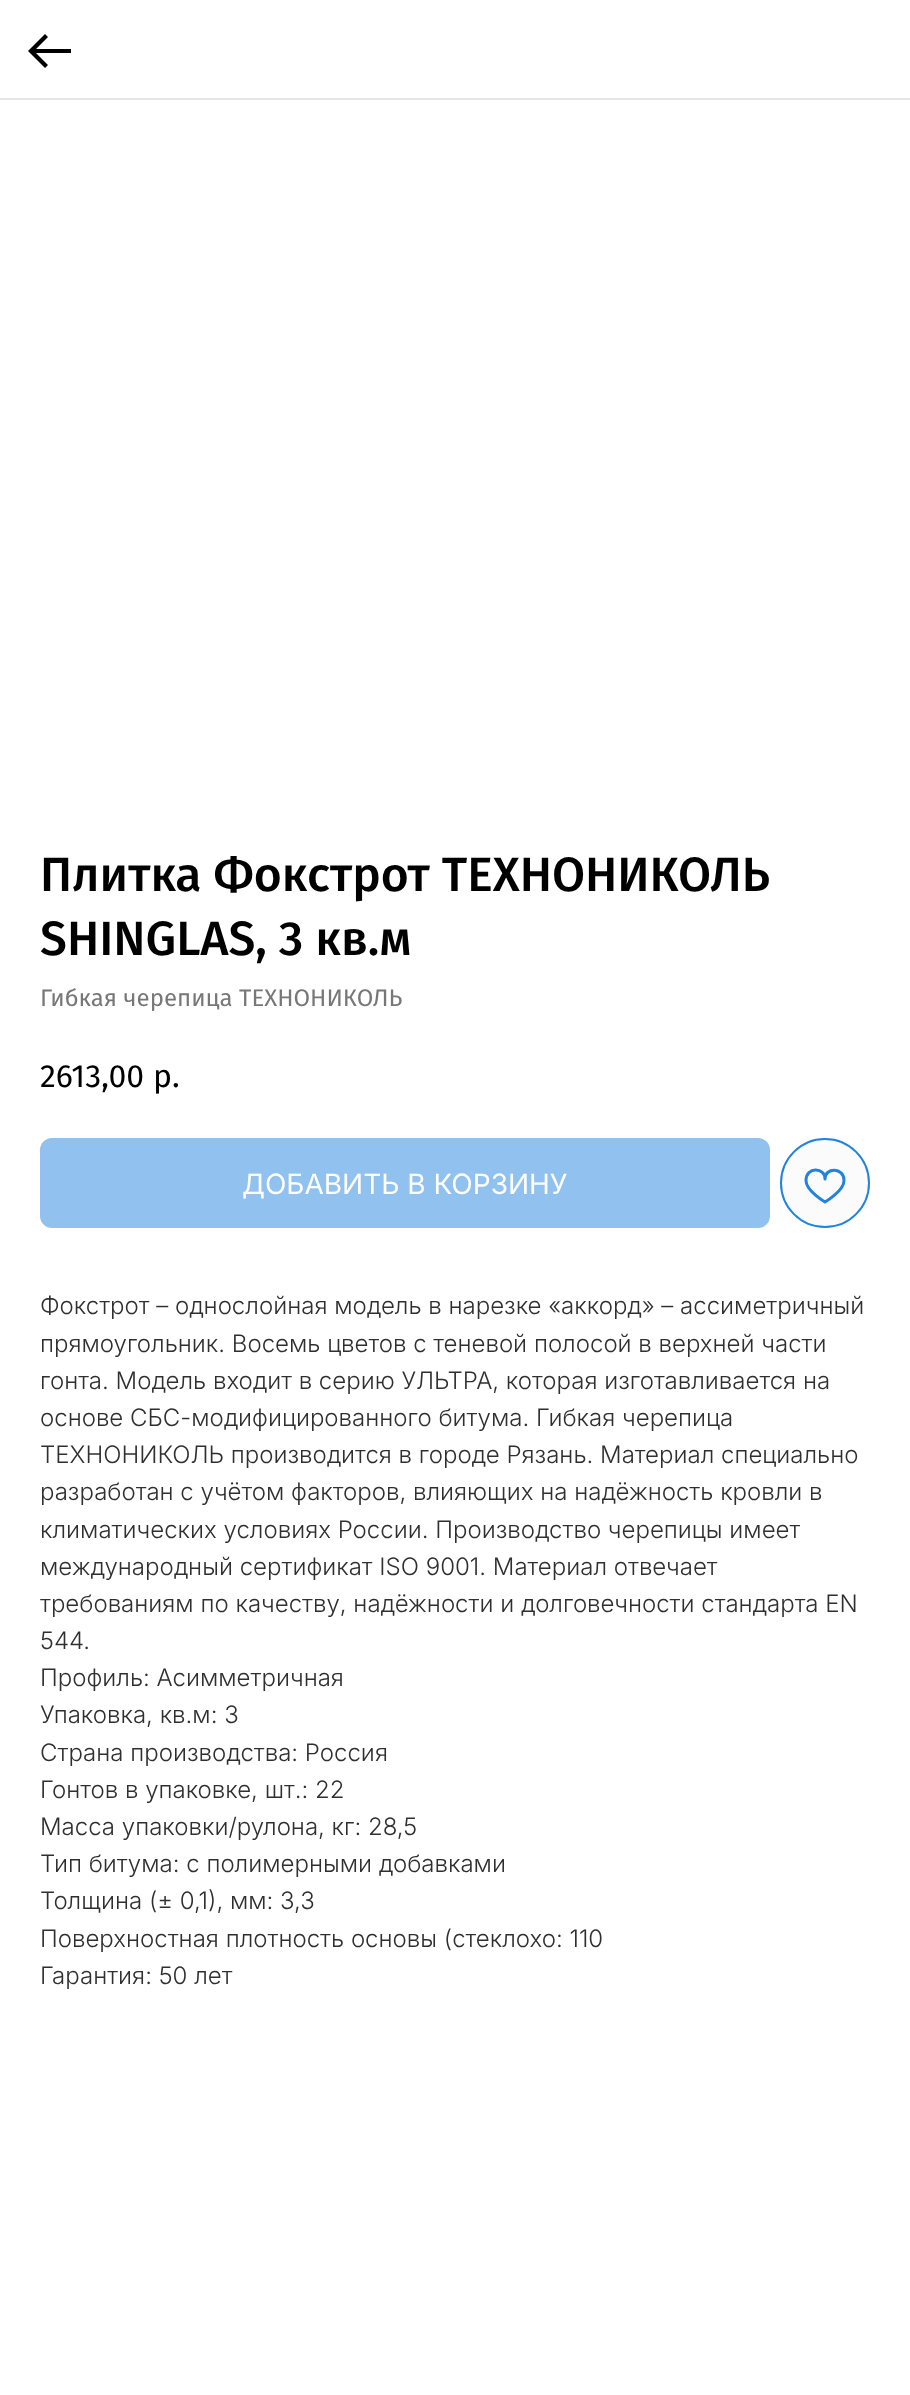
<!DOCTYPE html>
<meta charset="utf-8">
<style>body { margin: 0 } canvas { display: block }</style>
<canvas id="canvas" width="910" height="2395"></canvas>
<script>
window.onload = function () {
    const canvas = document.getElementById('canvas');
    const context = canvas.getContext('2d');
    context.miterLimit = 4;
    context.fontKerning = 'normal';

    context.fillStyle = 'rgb(255, 255, 255)';
    context.fillRect(0, 0, 910, 2395);
    context.fillStyle = 'rgb(230, 230, 230)';
    context.fillRect(0, 98, 910, 2);
    context.fillStyle = 'rgb(0, 0, 0)';
    context.beginPath();
    context.moveTo(45, 34);
    context.lineTo(48, 37);
    context.lineTo(36, 49);
    context.lineTo(71, 49);
    context.lineTo(71, 53);
    context.lineTo(36, 53);
    context.lineTo(48, 65);
    context.lineTo(45, 68);
    context.lineTo(28, 51);
    context.closePath();
    context.fill();
    context.fillStyle = 'rgb(145, 193, 238)';
    context.beginPath();
    context.roundRect(41, 1139, 728, 88, 11);
    context.fill();
    context.strokeStyle = 'rgb(145, 193, 238)';
    context.lineWidth = 2;
    context.stroke();
    context.fillStyle = 'rgb(251, 251, 251)';
    context.beginPath();
    context.arc(825, 1183, 44, 0, 2 * Math.PI);
    context.fill();
    context.strokeStyle = 'rgb(34, 131, 220)';
    context.stroke();
    context.beginPath();
    context.moveTo(844, 1180.5);
    context.bezierCurveTo(844, 1191, 825, 1202, 825, 1202);
    context.bezierCurveTo(825, 1202, 806, 1191, 806, 1180.5);
    context.bezierCurveTo(806, 1166.5, 825, 1167, 825, 1179);
    context.bezierCurveTo(825, 1167, 844, 1167, 844, 1180.5);
    context.closePath();
    context.lineWidth = 3;
    context.lineJoin = 'round';
    context.stroke();
    context.font = '500 48px Fira Sans';
    context.fillStyle = 'rgb(0, 0, 0)';
    context.fillText('Плитка Фокстрот ТЕХНОНИКОЛЬ', 40, 891);
    context.fillText('SHINGLAS, 3 кв.м', 40, 955);
    context.font = '24px Fira Sans';
    context.fillStyle = 'rgb(119, 119, 119)';
    context.fillText('Гибкая черепица ТЕХНОНИКОЛЬ', 40, 1006);
    context.font = '32px Fira Sans';
    context.fillStyle = 'rgb(0, 0, 0)';
    context.fillText('2613,00', 40, 1087);
    context.fillText('р.', 153, 1087);
    context.font = '28px Inter';
    context.fillStyle = 'rgb(255, 255, 255)';
    context.fillText('ДОБАВИТЬ В КОРЗИНУ', 242, 1194);
    context.font = '300 24px Inter';
    context.fillStyle = 'rgb(47, 47, 47)';
    context.fillText('Фокстрот – однослойная модель в нарезке «аккорд» – ассиметричный', 40, 1314);
    context.fillText('прямоугольник. Восемь цветов с теневой полосой в верхней части', 40, 1352);
    context.fillText('гонта. Модель входит в серию УЛЬТРА, которая изготавливается на', 40, 1389);
    context.fillText('основе СБС-модифицированного битума. Гибкая черепица', 40, 1426);
    context.fillText('ТЕХНОНИКОЛЬ производится в городе Рязань. Материал специально', 40, 1463);
    context.fillText('разработан с учётом факторов, влияющих на надёжность кровли в', 40, 1500);
    context.fillText('климатических условиях России. Производство черепицы имеет', 40, 1538);
    context.fillText('международный сертификат ISO 9001. Материал отвечает', 40, 1575);
    context.fillText('требованиям по качеству, надёжности и долговечности стандарта EN', 40, 1612);
    context.fillText('544.', 40, 1649);
    context.fillText('Профиль: Асимметричная', 40, 1686);
    context.fillText('Упаковка, кв.м: 3', 40, 1723);
    context.fillText('Страна производства: Россия', 40, 1761);
    context.fillText('Гонтов в упаковке, шт.: 22', 40, 1798);
    context.fillText('Масса упаковки/рулона, кг: 28,5', 40, 1835);
    context.fillText('Тип битума: с полимерными добавками', 40, 1872);
    context.fillText('Толщина (± 0,1), мм: 3,3', 40, 1909);
    context.fillText('Поверхностная плотность основы (стеклохо: 110', 40, 1947);
    context.fillText('Гарантия: 50 лет', 40, 1984);
};
</script>
